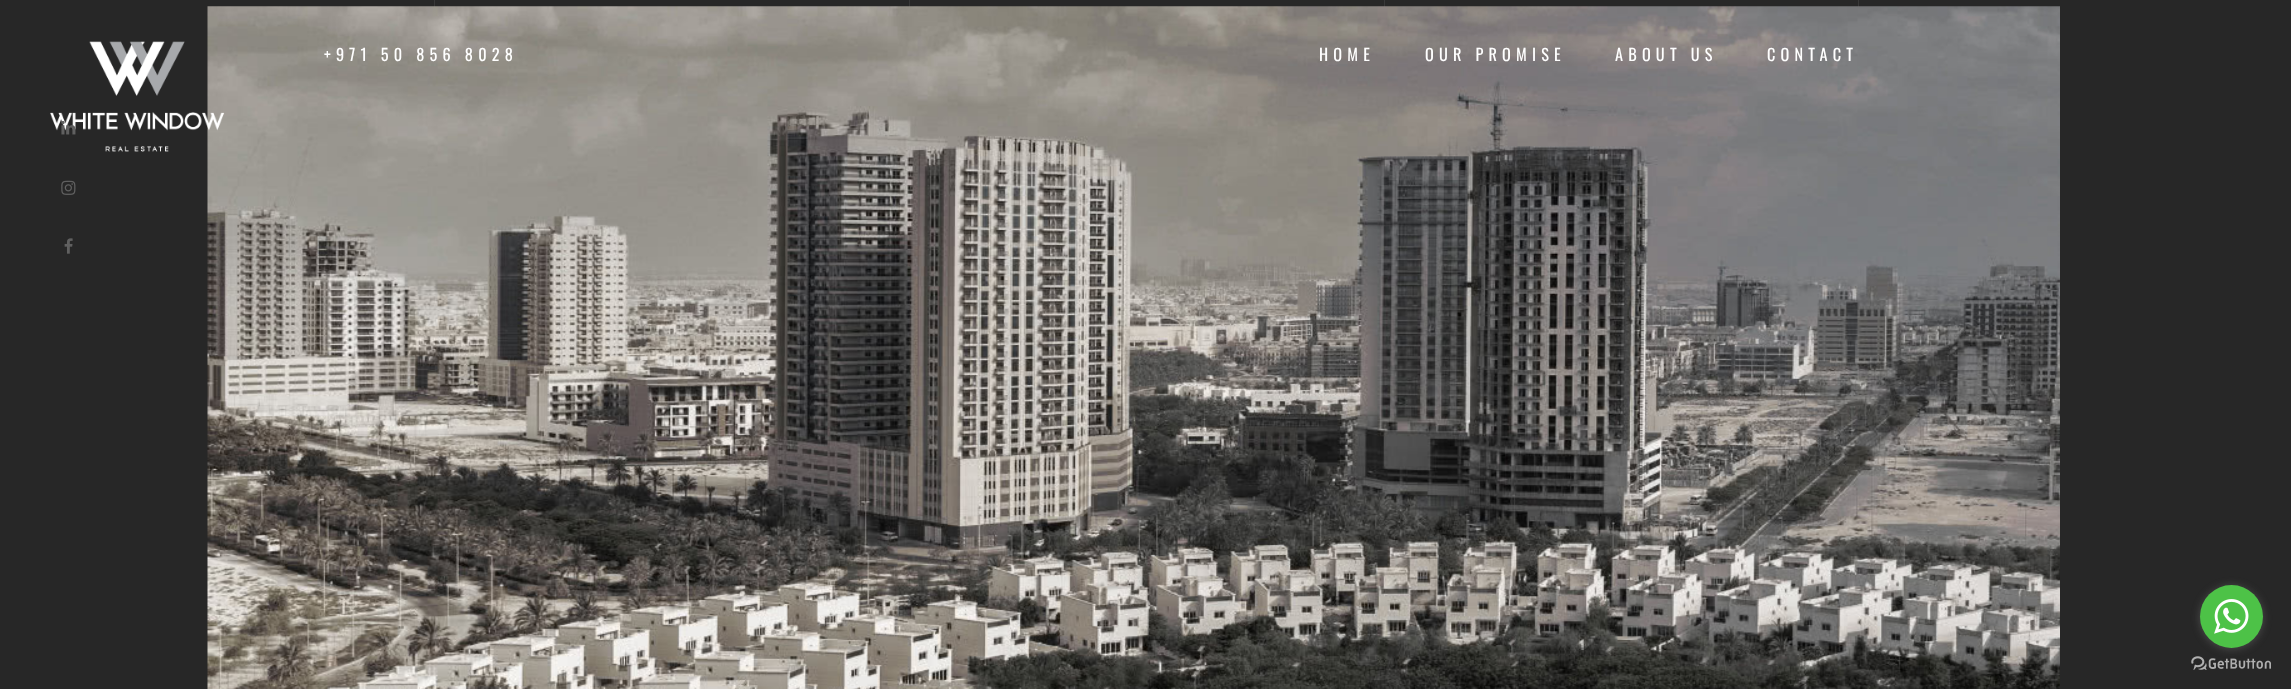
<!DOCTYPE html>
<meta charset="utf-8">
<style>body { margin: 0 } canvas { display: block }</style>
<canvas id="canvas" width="2291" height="689"></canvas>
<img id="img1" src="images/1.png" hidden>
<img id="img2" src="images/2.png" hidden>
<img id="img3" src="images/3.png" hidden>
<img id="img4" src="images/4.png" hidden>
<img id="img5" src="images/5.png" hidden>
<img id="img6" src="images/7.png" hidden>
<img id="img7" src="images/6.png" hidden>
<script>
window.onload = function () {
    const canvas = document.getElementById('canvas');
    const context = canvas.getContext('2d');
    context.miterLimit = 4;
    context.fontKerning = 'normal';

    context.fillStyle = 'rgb(39, 39, 39)';
    context.fillRect(0, 0, 2291, 689);
    context.fillStyle = 'rgb(56, 56, 56)';
    context.fillRect(434, 0, 1, 7);
    context.fillRect(909, 0, 1, 7);
    context.fillRect(1384, 0, 1, 7);
    context.fillRect(1858, 0, 1, 7);
    context.drawImage(document.getElementById('img1'), 207, 6, 1853, 683);
    context.drawImage(document.getElementById('img2'), 50, 41, 175, 111);
    context.drawImage(document.getElementById('img3'), 61, 121, 15, 14);
    context.drawImage(document.getElementById('img4'), 61, 180, 15, 15);
    context.drawImage(document.getElementById('img5'), 64, 238, 9, 16);
    context.drawImage(document.getElementById('img6'), 2191, 656, 80, 14);
    context.fillStyle = 'rgba(136, 136, 136, 0.4)';
    context.filter = 'blur(4.5px)';
    context.beginPath();
    context.roundRect(2200, 586, 63, 63, 31.5);
    context.fill();
    context.filter = 'none';
    context.fillStyle = 'rgb(77, 194, 71)';
    context.beginPath();
    context.arc(2231.5, 616.5, 31.5, 0, 2 * Math.PI);
    context.fill();
    context.drawImage(document.getElementById('img7'), 2214, 599, 35, 35);
    context.letterSpacing = '5.2px';
    context.font = '16.25px Oswald';
    context.fillStyle = 'rgb(255, 255, 255)';
    context.fillText('+971 50 856 8028', 324, 61);
    context.fillText('HOME', 1319, 61);
    context.fillText('OUR PROMISE', 1425, 61);
    context.fillText('ABOUT US', 1615, 61);
    context.fillText('CONTACT', 1767, 61);
};
</script>
